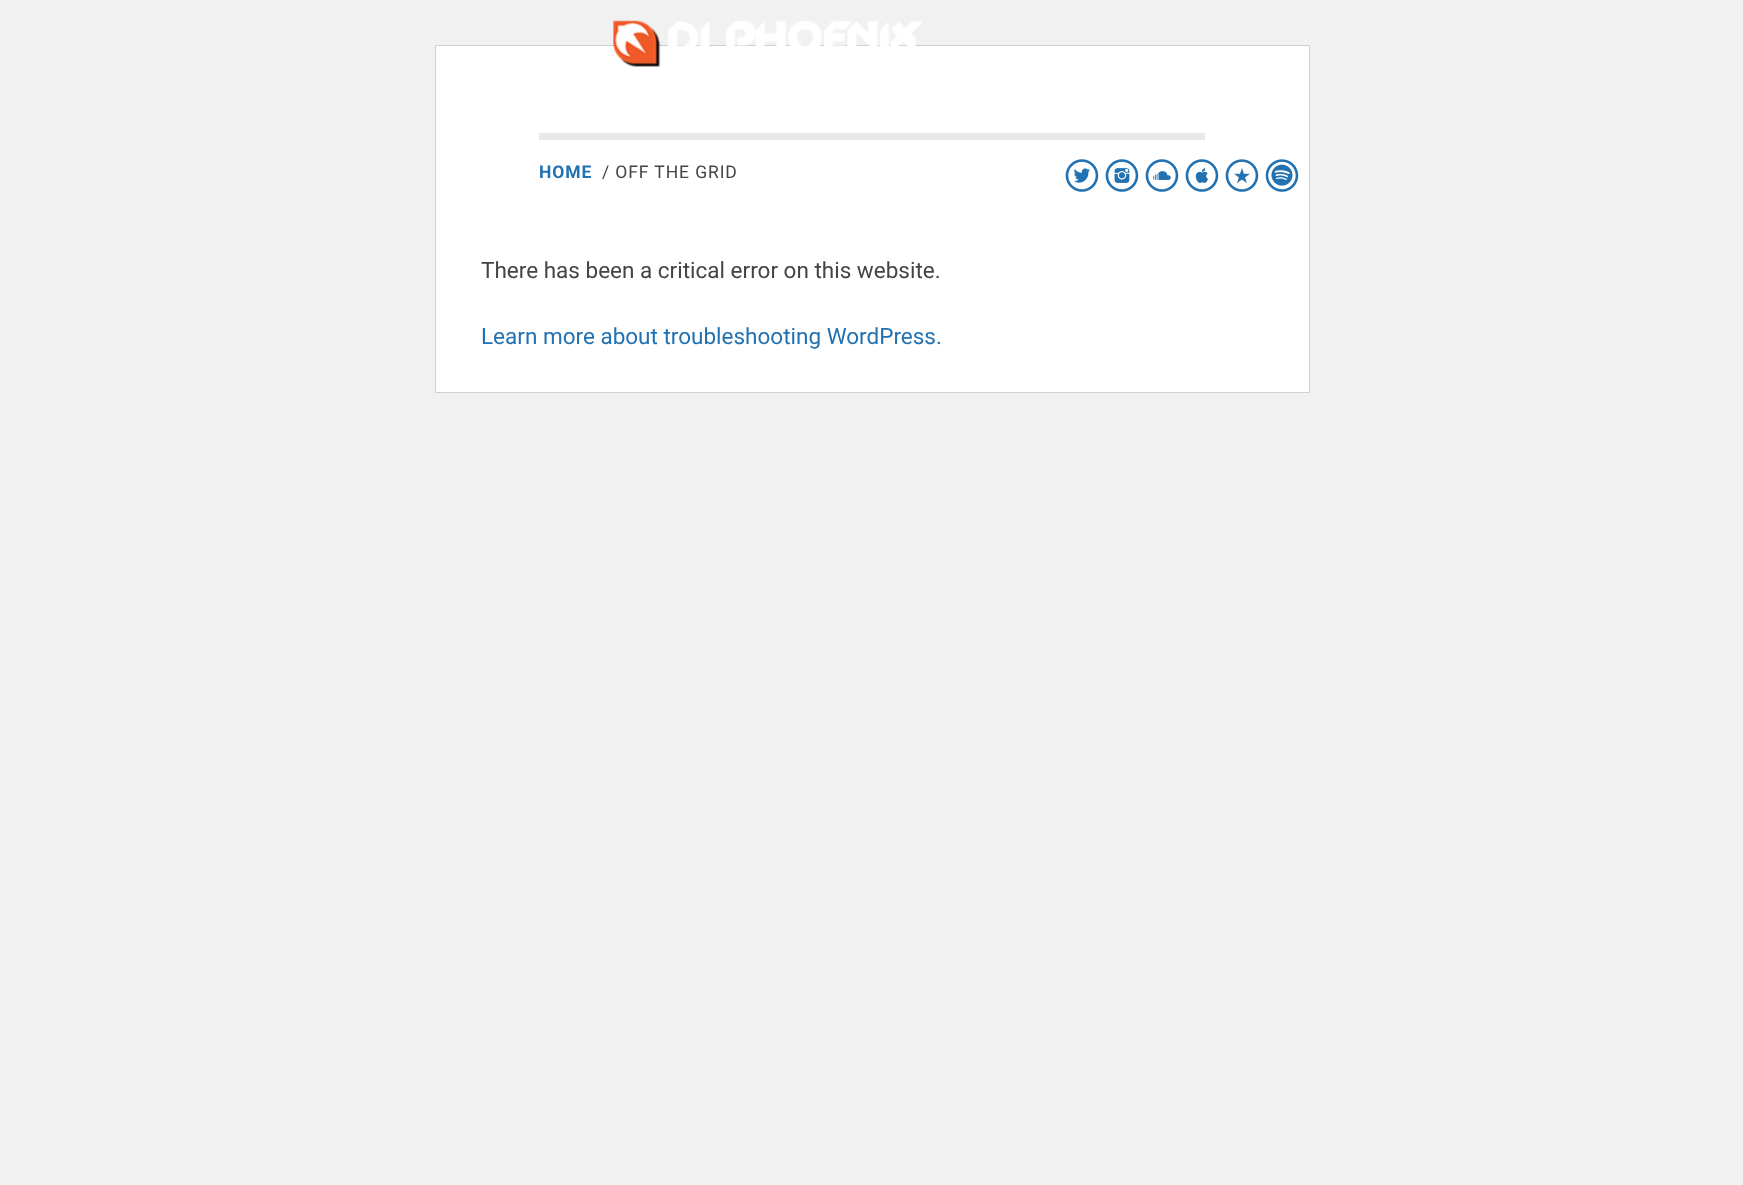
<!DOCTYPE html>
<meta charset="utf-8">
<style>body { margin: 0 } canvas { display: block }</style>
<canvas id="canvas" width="1743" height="1185"></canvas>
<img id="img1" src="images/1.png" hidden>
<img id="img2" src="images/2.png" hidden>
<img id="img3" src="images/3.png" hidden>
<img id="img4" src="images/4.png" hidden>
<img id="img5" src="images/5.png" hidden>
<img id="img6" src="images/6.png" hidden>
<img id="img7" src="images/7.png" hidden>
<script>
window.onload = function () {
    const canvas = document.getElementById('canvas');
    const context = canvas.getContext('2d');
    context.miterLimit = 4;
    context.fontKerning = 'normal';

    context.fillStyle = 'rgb(241, 241, 241)';
    context.fillRect(0, 0, 1743, 1185);
    context.fillStyle = 'rgb(255, 255, 255)';
    context.beginPath();
    context.rect(435.5, 45.5, 874, 347);
    context.fill();
    context.strokeStyle = 'rgb(204, 208, 212)';
    context.stroke();
    context.drawImage(document.getElementById('img1'), 613, 20, 310, 47);
    context.fillStyle = 'rgb(232, 232, 232)';
    context.fillRect(539, 133, 666, 7);
    context.drawImage(document.getElementById('img2'), 1065, 159, 34, 33);
    context.drawImage(document.getElementById('img3'), 1105, 159, 34, 33);
    context.drawImage(document.getElementById('img4'), 1145, 159, 34, 33);
    context.drawImage(document.getElementById('img5'), 1185, 159, 34, 33);
    context.drawImage(document.getElementById('img6'), 1225, 159, 34, 33);
    context.drawImage(document.getElementById('img7'), 1265, 159, 34, 33);
    context.letterSpacing = '0.9px';
    context.font = 'bold 17.5px Roboto';
    context.fillStyle = 'rgb(34, 113, 177)';
    context.fillText('HOME', 539, 178);
    context.font = '17.5px Roboto';
    context.fillStyle = 'rgb(68, 68, 68)';
    context.fillText('/ OFF THE GRID', 602, 178);
    context.letterSpacing = '0px';
    context.font = '22.5px Roboto';
    context.fillText('There has been a critical error on this website.', 481, 278);
    context.fillStyle = 'rgb(34, 113, 177)';
    context.fillText('Learn more about troubleshooting WordPress.', 481, 344);
};
</script>
